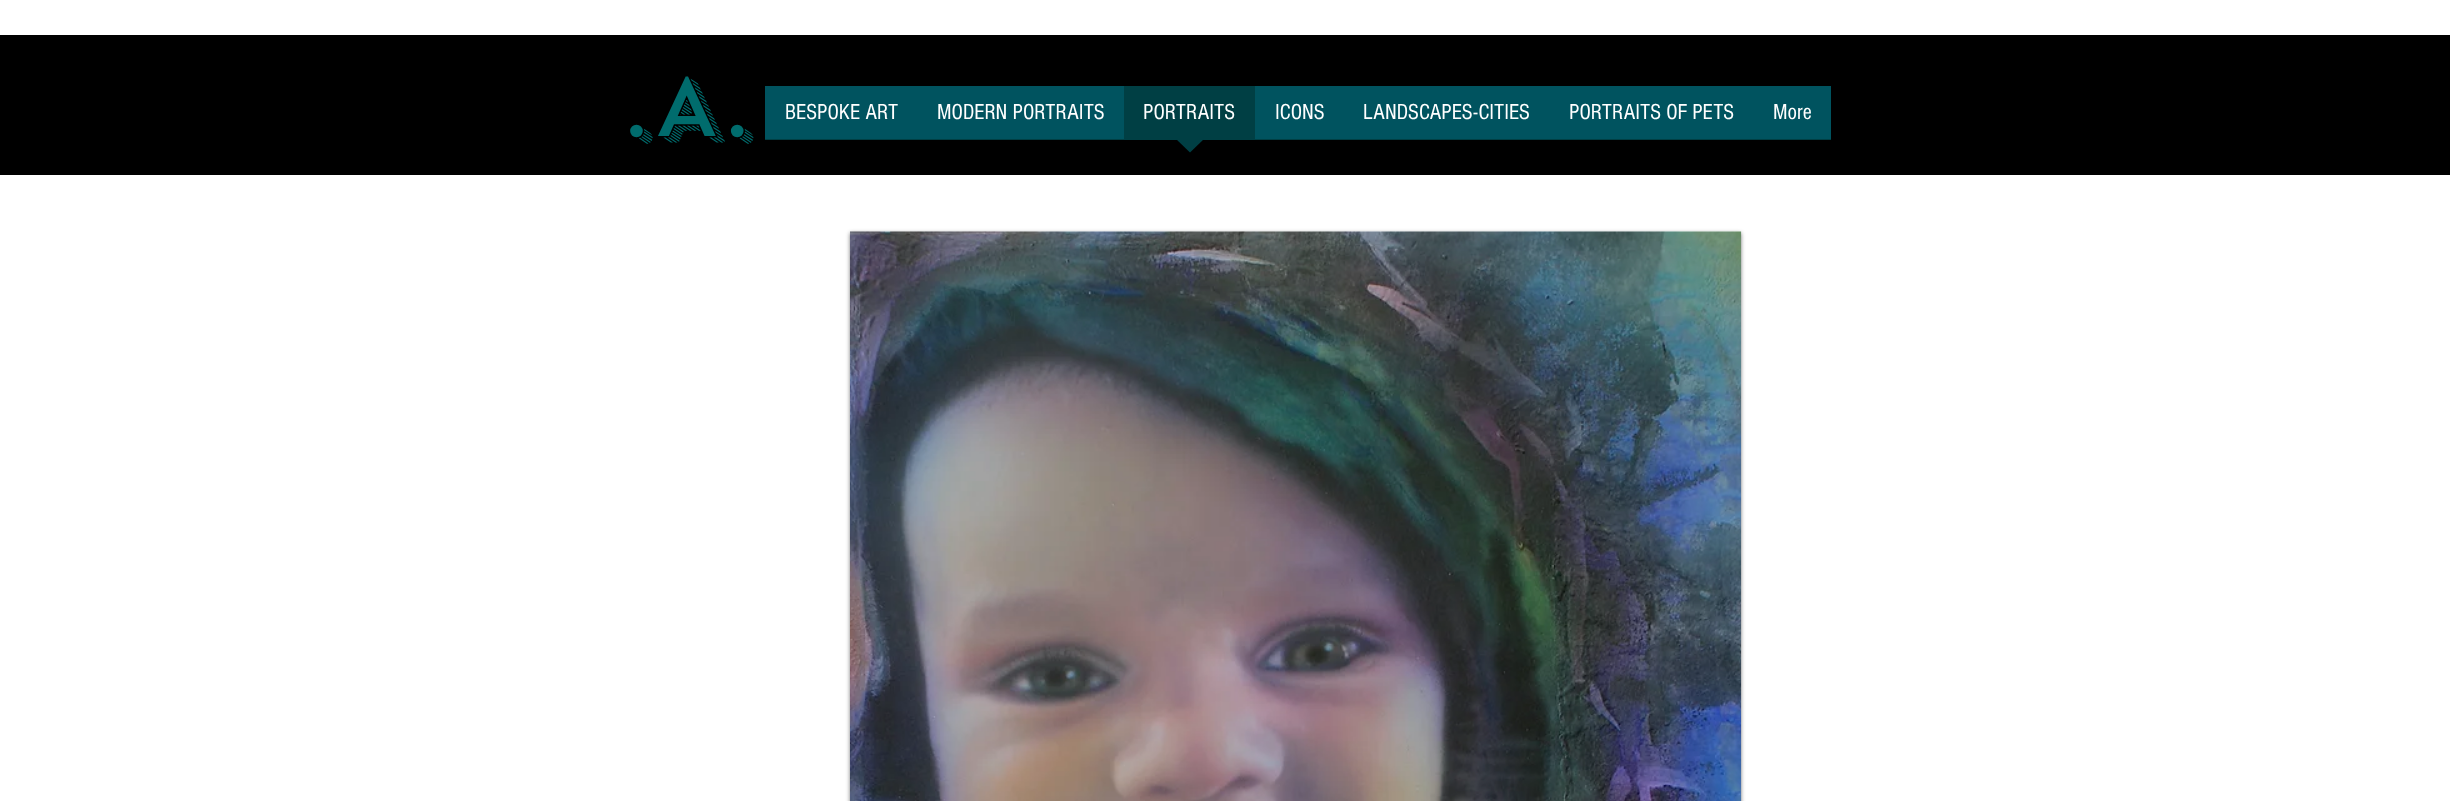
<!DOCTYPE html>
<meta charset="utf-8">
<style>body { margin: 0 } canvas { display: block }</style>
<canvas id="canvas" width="2450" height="801"></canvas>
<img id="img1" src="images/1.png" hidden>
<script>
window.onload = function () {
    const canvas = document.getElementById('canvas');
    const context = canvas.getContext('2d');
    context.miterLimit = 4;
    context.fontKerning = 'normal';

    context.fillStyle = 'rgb(255, 255, 255)';
    context.fillRect(0, 0, 2450, 801);
    context.fillStyle = 'rgb(0, 0, 0)';
    context.fillRect(0, 35, 2450, 140);
    context.fillStyle = 'rgb(0, 83, 95)';
    context.fillRect(765, 86, 1066, 53);
    context.fillStyle = 'rgb(0, 63, 68)';
    context.fillRect(765, 139, 1066, 1);
    context.fillRect(1124, 86, 131, 53);
    context.beginPath();
    context.moveTo(1176, 139);
    context.lineTo(1204, 139);
    context.lineTo(1190, 152.5);
    context.closePath();
    context.fill();
    context.fillStyle = 'rgba(0, 0, 0, 0.5)';
    context.filter = 'blur(2px)';
    context.beginPath();
    context.rect(850, 233, 891, 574);
    context.fill();
    context.filter = 'none';
    context.fillStyle = 'rgb(255, 255, 255)';
    context.fillRect(850, 231, 891, 1);
    context.drawImage(document.getElementById('img1'), 850, 231, 892, 570);
    context.font = '500 84px "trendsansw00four"';
    context.fillStyle = 'rgb(0, 108, 109)';
    context.fillText('.A.', 620, 136);
    context.font = '22.5px "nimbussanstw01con"';
    context.fillStyle = 'rgb(255, 255, 255)';
    context.fillText('BESPOKE ART', 785, 119);
    context.fillText('MODERN PORTRAITS', 937, 119);
    context.fillText('PORTRAITS', 1143, 119);
    context.fillText('ICONS', 1275, 119);
    context.fillText('LANDSCAPES-CITIES', 1363, 119);
    context.fillText('PORTRAITS OF PETS', 1569, 119);
    context.fillText('More', 1773, 119);
};
</script>
